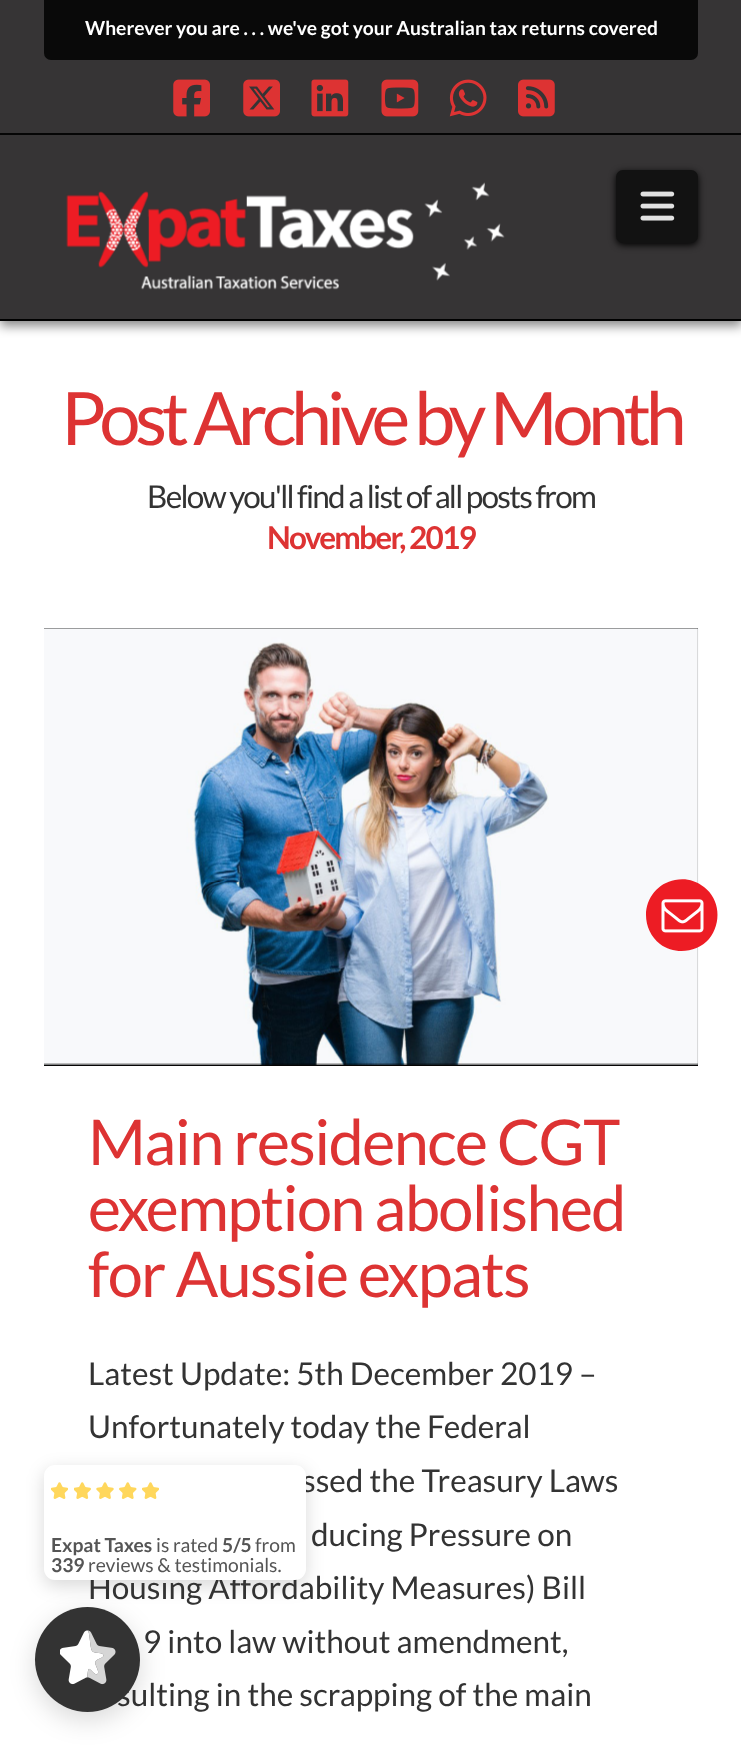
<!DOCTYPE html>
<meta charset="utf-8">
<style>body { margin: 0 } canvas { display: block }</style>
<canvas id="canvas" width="741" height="1745"></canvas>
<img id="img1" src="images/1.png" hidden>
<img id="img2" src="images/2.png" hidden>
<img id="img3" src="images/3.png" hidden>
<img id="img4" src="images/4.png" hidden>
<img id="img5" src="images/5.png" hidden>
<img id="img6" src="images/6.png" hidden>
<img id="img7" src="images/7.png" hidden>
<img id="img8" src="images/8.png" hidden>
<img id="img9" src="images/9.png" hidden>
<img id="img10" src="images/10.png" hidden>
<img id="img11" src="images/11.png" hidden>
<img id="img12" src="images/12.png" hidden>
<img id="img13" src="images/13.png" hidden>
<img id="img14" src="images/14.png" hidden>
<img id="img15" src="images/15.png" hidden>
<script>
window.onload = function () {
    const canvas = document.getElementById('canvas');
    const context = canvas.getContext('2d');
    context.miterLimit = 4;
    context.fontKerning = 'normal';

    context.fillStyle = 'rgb(255, 255, 255)';
    context.fillRect(0, 0, 741, 1745);
    context.fillStyle = 'rgba(0, 0, 0, 0.47)';
    context.filter = 'blur(5.5px)';
    context.beginPath();
    context.rect(0, 140, 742, 186);
    context.fill();
    context.filter = 'none';
    context.fillStyle = 'rgb(54, 52, 53)';
    context.fillRect(0, 0, 741, 133);
    context.fillStyle = 'rgb(5, 5, 5)';
    context.fillRect(0, 133, 741, 2);
    context.fillStyle = 'rgb(9, 9, 9)';
    context.beginPath();
    context.roundRect(44, 0, 654, 60, [0, 0, 7, 7]);
    context.fill();
    context.drawImage(document.getElementById('img1'), 173, 79, 37, 38);
    context.drawImage(document.getElementById('img2'), 243, 79, 37, 38);
    context.drawImage(document.getElementById('img3'), 311, 79, 38, 38);
    context.drawImage(document.getElementById('img4'), 381, 79, 38, 38);
    context.drawImage(document.getElementById('img5'), 449, 79, 38, 38);
    context.drawImage(document.getElementById('img6'), 518, 79, 37, 38);
    context.fillStyle = 'rgb(54, 52, 53)';
    context.fillRect(0, 135, 741, 184);
    context.fillStyle = 'rgb(0, 0, 0)';
    context.fillRect(0, 319, 741, 2);
    context.drawImage(document.getElementById('img7'), 66, 182, 439, 108);
    context.filter = 'blur(3.5px)';
    context.beginPath();
    context.roundRect(616, 172, 82, 73, 7);
    context.fill();
    context.filter = 'none';
    context.fillStyle = 'rgb(18, 18, 18)';
    context.beginPath();
    context.roundRect(616, 170, 82, 73, 7);
    context.fill();
    context.drawImage(document.getElementById('img8'), 640, 191, 35, 30);
    context.fillStyle = 'rgb(5, 5, 5)';
    context.fillRect(44, 1064, 654, 2);
    context.fillStyle = 'rgb(0, 0, 0)';
    context.fillRect(44, 628, 654, 436);
    context.drawImage(document.getElementById('img9'), 44, 628, 655, 437);
    context.fillStyle = 'rgb(237, 28, 36)';
    context.beginPath();
    context.moveTo(646, 915);
    context.bezierCurveTo(646, 898, 658, 883, 675, 880);
    context.bezierCurveTo(685, 878, 695, 880, 704, 887);
    context.bezierCurveTo(720, 899, 722, 923, 709, 939);
    context.bezierCurveTo(697, 953, 674, 955, 660, 944);
    context.bezierCurveTo(651, 937, 646, 926, 646, 915);
    context.closePath();
    context.fill();
    context.drawImage(document.getElementById('img10'), 661, 899, 43, 34);
    context.fillStyle = 'rgba(0, 0, 0, 0.15)';
    context.filter = 'blur(9px)';
    context.beginPath();
    context.roundRect(44, 1470, 262, 116, 11);
    context.fill();
    context.filter = 'none';
    context.font = 'bold 19.25px Lato';
    context.fillStyle = 'rgb(255, 255, 255)';
    context.fillText('Wherever you are . . . we\'ve got your Australian tax returns covered', 85, 35);
    context.letterSpacing = '-5.25px';
    context.font = '73.5px Lato';
    context.fillStyle = 'rgb(221, 51, 51)';
    context.fillText('Post Archive by Month', 61, 445);
    context.letterSpacing = '-1.75px';
    context.font = '31.5px Lato';
    context.fillStyle = 'rgb(51, 51, 51)';
    context.fillText('Below you\'ll find a list of all posts from', 147, 508);
    context.font = 'bold 31.5px Lato';
    context.fillStyle = 'rgb(221, 51, 51)';
    context.fillText('November, 2019', 267, 549);
    context.letterSpacing = '-1.6px';
    context.font = '63px Lato';
    context.fillText('Main residence CGT', 88, 1165);
    context.fillText('exemption abolished', 88, 1231);
    context.fillText('for Aussie expats', 88, 1297);
    context.letterSpacing = '0px';
    context.font = '31.5px Lato';
    context.fillStyle = 'rgb(51, 51, 51)';
    context.fillText('Latest Update: 5th December 2019 –', 88, 1385);
    context.fillText('Unfortunately today the Federal', 88, 1438);
    context.fillText('ssed the Treasury Laws', 302, 1492);
    context.fillText('ducing Pressure on', 311, 1546);
    context.fillText('Housing Affordability Measures) Bill', 88, 1599);
    context.fillText('9 into law without amendment,', 143, 1653);
    context.fillText('sulting in the scrapping of the main', 117, 1706);
    context.fillStyle = 'rgb(255, 255, 255)';
    context.beginPath();
    context.roundRect(45, 1466, 260, 113, 10);
    context.fill();
    context.strokeStyle = 'rgb(255, 255, 255)';
    context.lineWidth = 2;
    context.stroke();
    context.drawImage(document.getElementById('img11'), 51, 1482, 17, 17);
    context.drawImage(document.getElementById('img12'), 74, 1482, 17, 17);
    context.drawImage(document.getElementById('img13'), 96, 1482, 18, 17);
    context.drawImage(document.getElementById('img14'), 119, 1482, 18, 17);
    context.drawImage(document.getElementById('img11'), 142, 1482, 17, 17);
    context.font = 'bold 19.25px Lato';
    context.fillStyle = 'rgb(85, 85, 85)';
    context.fillText('Expat Taxes', 51, 1552);
    context.font = '19.25px Lato';
    context.fillText('is rated', 156, 1552);
    context.font = 'bold 19.25px Lato';
    context.fillText('5/5', 222, 1552);
    context.font = '19.25px Lato';
    context.fillText('from', 255, 1552);
    context.font = 'bold 19.25px Lato';
    context.fillText('339', 51, 1572);
    context.font = '19.25px Lato';
    context.fillText('reviews & testimonials.', 88, 1572);
    context.fillStyle = 'rgba(0, 0, 0, 0.15)';
    context.filter = 'blur(13px)';
    context.beginPath();
    context.roundRect(35, 1615, 105, 105, 52.5);
    context.fill();
    context.filter = 'none';
    context.fillStyle = 'rgb(51, 51, 51)';
    context.beginPath();
    context.arc(87.5, 1659.5, 52.5, 0, 2 * Math.PI);
    context.fill();
    context.drawImage(document.getElementById('img15'), 60, 1630, 56, 55);
};
</script>
